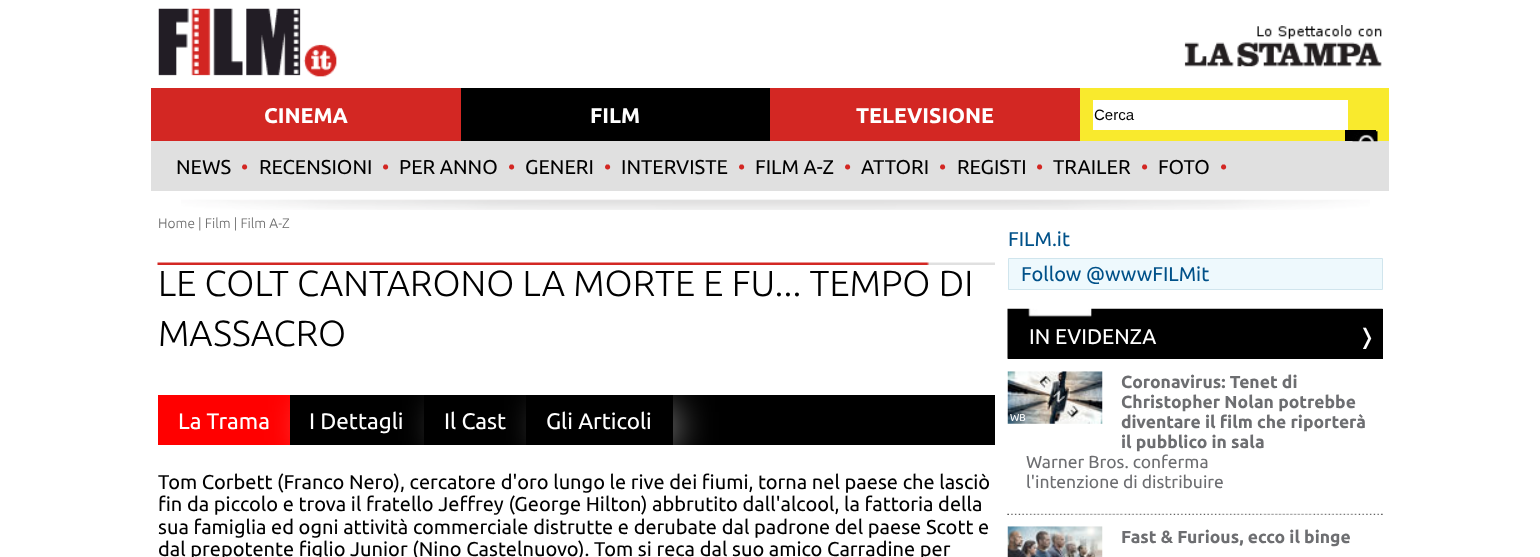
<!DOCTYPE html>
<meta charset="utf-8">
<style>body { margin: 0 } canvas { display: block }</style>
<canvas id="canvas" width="1540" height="557"></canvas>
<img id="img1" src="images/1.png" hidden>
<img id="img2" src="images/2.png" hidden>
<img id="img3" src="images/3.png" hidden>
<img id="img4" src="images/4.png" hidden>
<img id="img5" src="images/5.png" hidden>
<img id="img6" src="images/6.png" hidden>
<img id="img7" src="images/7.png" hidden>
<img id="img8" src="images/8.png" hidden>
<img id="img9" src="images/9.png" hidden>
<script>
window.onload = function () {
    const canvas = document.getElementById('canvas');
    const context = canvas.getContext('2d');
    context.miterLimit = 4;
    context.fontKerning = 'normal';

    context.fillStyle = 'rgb(255, 255, 255)';
    context.fillRect(0, 0, 1540, 557);
    context.drawImage(document.getElementById('img1'), 158, 8, 179, 69);
    context.drawImage(document.getElementById('img2'), 1184, 25, 198, 42);
    context.fillStyle = 'rgb(211, 39, 35)';
    context.fillRect(151, 88, 929, 53);
    context.fillStyle = 'rgb(0, 0, 0)';
    context.fillRect(461, 88, 309, 53);
    context.fillStyle = 'rgb(249, 234, 45)';
    context.fillRect(1080, 88, 309, 53);
    context.fillStyle = 'rgb(255, 255, 255)';
    context.fillRect(1093, 100, 255, 30);
    context.fillStyle = 'rgb(0, 0, 0)';
    context.fillRect(1345, 130, 31, 11);
    context.fillStyle = 'rgb(224, 224, 224)';
    context.fillRect(151, 141, 1238, 50);
    context.drawImage(document.getElementById('img3'), 1352, 131, 26, 11);
    context.drawImage(document.getElementById('img4'), 181, 199, 1189, 11);
    context.drawImage(document.getElementById('img5'), 157, 262, 838, 3);
    context.fillStyle = 'rgb(0, 0, 0)';
    context.fillRect(673, 395, 322, 50);
    context.fillStyle = 'rgb(255, 0, 0)';
    context.fillRect(158, 395, 132, 50);
    context.fillStyle = 'rgba(255, 255, 255, 0.74)';
    context.filter = 'blur(19px)';
    context.beginPath();
    context.rect(309, 410, 116, 33);
    context.fill();
    context.filter = 'none';
    context.fillStyle = 'rgb(0, 0, 0)';
    context.fillRect(290, 395, 134, 50);
    context.fillStyle = 'rgba(255, 255, 255, 0.74)';
    context.filter = 'blur(19px)';
    context.beginPath();
    context.rect(443, 410, 85, 33);
    context.fill();
    context.filter = 'none';
    context.fillStyle = 'rgb(0, 0, 0)';
    context.fillRect(424, 395, 102, 50);
    context.fillStyle = 'rgba(255, 255, 255, 0.74)';
    context.filter = 'blur(19px)';
    context.beginPath();
    context.rect(545, 410, 129, 33);
    context.fill();
    context.filter = 'none';
    context.fillStyle = 'rgb(0, 0, 0)';
    context.fillRect(526, 395, 147, 50);
    context.fillStyle = 'rgb(238, 249, 253)';
    context.beginPath();
    context.rect(1008.5, 258.5, 374, 31);
    context.fill();
    context.strokeStyle = 'rgb(208, 229, 237)';
    context.stroke();
    context.fillStyle = 'rgb(0, 0, 0)';
    context.fillRect(1008, 309, 375, 50);
    context.drawImage(document.getElementById('img6'), 1007, 308, 376, 51);
    context.drawImage(document.getElementById('img7'), 1007, 371, 96, 53);
    context.drawImage(document.getElementById('img8'), 1007, 513, 376, 2);
    context.drawImage(document.getElementById('img9'), 1007, 526, 96, 31);
    context.font = 'bold 21.25px Ubuntu';
    context.fillStyle = 'rgb(255, 255, 255)';
    context.fillText('CINEMA', 264, 123);
    context.fillText('FILM', 590, 123);
    context.fillText('TELEVISIONE', 856, 123);
    context.font = '15px Liberation Sans';
    context.fillStyle = 'rgb(0, 0, 0)';
    context.fillText('Cerca', 1094, 120);
    context.font = '20px Ubuntu';
    context.fillText('NEWS', 176, 174);
    context.fillStyle = 'rgb(211, 39, 35)';
    context.fillText('•', 241, 174);
    context.fillStyle = 'rgb(0, 0, 0)';
    context.fillText('RECENSIONI', 259, 174);
    context.fillStyle = 'rgb(211, 39, 35)';
    context.fillText('•', 382, 174);
    context.fillStyle = 'rgb(0, 0, 0)';
    context.fillText('PER ANNO', 399, 174);
    context.fillStyle = 'rgb(211, 39, 35)';
    context.fillText('•', 508, 174);
    context.fillStyle = 'rgb(0, 0, 0)';
    context.fillText('GENERI', 525, 174);
    context.fillStyle = 'rgb(211, 39, 35)';
    context.fillText('•', 604, 174);
    context.fillStyle = 'rgb(0, 0, 0)';
    context.fillText('INTERVISTE', 621, 174);
    context.fillStyle = 'rgb(211, 39, 35)';
    context.fillText('•', 738, 174);
    context.fillStyle = 'rgb(0, 0, 0)';
    context.fillText('FILM A-Z', 755, 174);
    context.fillStyle = 'rgb(211, 39, 35)';
    context.fillText('•', 844, 174);
    context.fillStyle = 'rgb(0, 0, 0)';
    context.fillText('ATTORI', 861, 174);
    context.fillStyle = 'rgb(211, 39, 35)';
    context.fillText('•', 939, 174);
    context.fillStyle = 'rgb(0, 0, 0)';
    context.fillText('REGISTI', 957, 174);
    context.fillStyle = 'rgb(211, 39, 35)';
    context.fillText('•', 1036, 174);
    context.fillStyle = 'rgb(0, 0, 0)';
    context.fillText('TRAILER', 1053, 174);
    context.fillStyle = 'rgb(211, 39, 35)';
    context.fillText('•', 1141, 174);
    context.fillStyle = 'rgb(0, 0, 0)';
    context.fillText('FOTO', 1158, 174);
    context.fillStyle = 'rgb(211, 39, 35)';
    context.fillText('•', 1220, 174);
    context.font = '300 13.75px Ubuntu';
    context.fillStyle = 'rgb(106, 106, 106)';
    context.fillText('Home | Film | Film A-Z', 158, 228);
    context.font = '300 36.25px Ubuntu';
    context.fillStyle = 'rgb(0, 0, 0)';
    context.fillText('LE COLT CANTARONO LA MORTE E FU... TEMPO DI', 158, 296);
    context.fillText('MASSACRO', 158, 346);
    context.font = '22.5px Ubuntu';
    context.fillStyle = 'rgb(255, 255, 255)';
    context.fillText('La Trama', 178, 429);
    context.fillText('I Dettagli', 309, 429);
    context.fillText('Il Cast', 444, 429);
    context.fillText('Gli Articoli', 546, 429);
    context.font = '20px Ubuntu';
    context.fillStyle = 'rgb(0, 0, 0)';
    context.fillText('Tom Corbett (Franco Nero), cercatore d\'oro lungo le rive dei fiumi, torna nel paese che lasciò', 158, 489);
    context.fillText('fin da piccolo e trova il fratello Jeffrey (George Hilton) abbrutito dall\'alcool, la fattoria della', 158, 511);
    context.fillText('sua famiglia ed ogni attività commerciale distrutte e derubate dal padrone del paese Scott e', 158, 534);
    context.fillText('dal prepotente figlio Junior (Nino Castelnuovo). Tom si reca dal suo amico Carradine per', 158, 556);
    context.fillStyle = 'rgb(0, 81, 137)';
    context.fillText('FILM.it', 1008, 246);
    context.fillText('Follow @wwwFILMit', 1021, 281);
    context.font = '21.25px Ubuntu';
    context.fillStyle = 'rgb(255, 255, 255)';
    context.fillText('IN EVIDENZA', 1029, 344);
    context.font = '21.25px DejaVu Sans';
    context.fillText('❭', 1358, 344);
    context.font = '10px Ubuntu';
    context.fillText('WB', 1010, 421);
    context.font = 'bold 17.5px Ubuntu';
    context.fillStyle = 'rgb(109, 110, 113)';
    context.fillText('Coronavirus: Tenet di', 1121, 388);
    context.fillText('Christopher Nolan potrebbe', 1121, 408);
    context.fillText('diventare il film che riporterà', 1121, 428);
    context.fillText('il pubblico in sala', 1121, 448);
    context.font = '17.5px Ubuntu';
    context.fillText('Warner Bros. conferma', 1026, 468);
    context.fillText('l\'intenzione di distribuire', 1026, 488);
    context.font = 'bold 17.5px Ubuntu';
    context.fillText('Fast & Furious, ecco il binge', 1121, 543);
};
</script>
